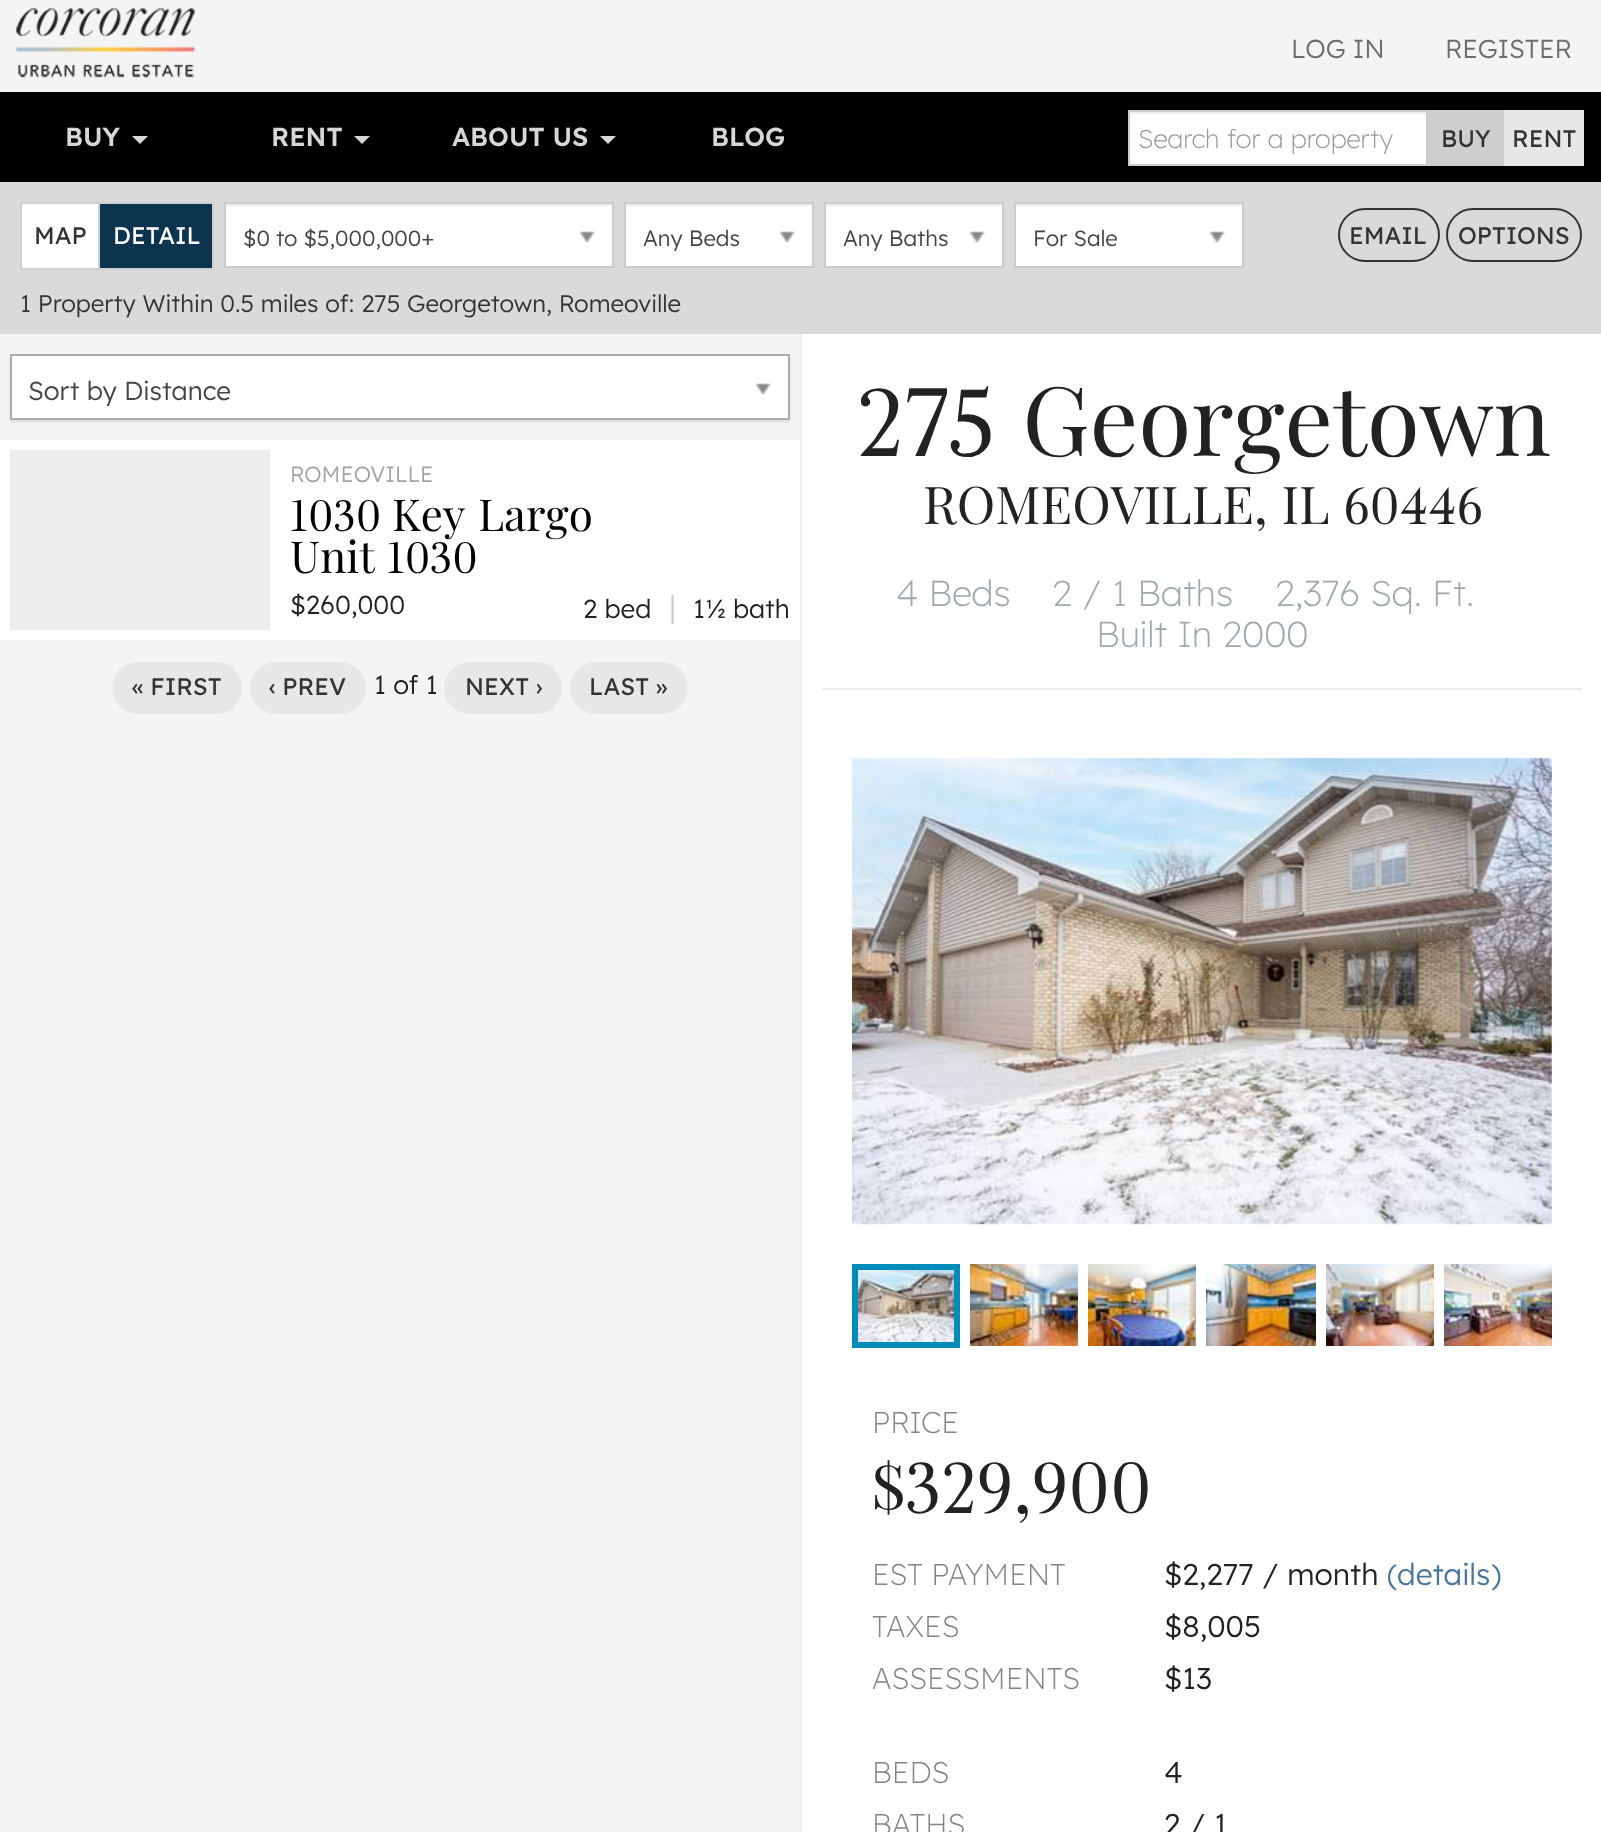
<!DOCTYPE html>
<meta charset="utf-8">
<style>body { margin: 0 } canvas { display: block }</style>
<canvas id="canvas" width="1601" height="1832"></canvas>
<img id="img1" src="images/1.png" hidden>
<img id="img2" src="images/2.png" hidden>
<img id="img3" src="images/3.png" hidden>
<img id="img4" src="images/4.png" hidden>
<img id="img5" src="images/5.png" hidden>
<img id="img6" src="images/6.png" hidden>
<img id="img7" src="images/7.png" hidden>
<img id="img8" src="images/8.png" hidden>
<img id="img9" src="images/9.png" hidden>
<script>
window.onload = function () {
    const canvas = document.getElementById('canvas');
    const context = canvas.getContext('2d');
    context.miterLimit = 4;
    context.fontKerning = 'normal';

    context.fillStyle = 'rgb(244, 244, 244)';
    context.fillRect(0, 0, 1601, 1832);
    context.drawImage(document.getElementById('img1'), 16, 8, 179, 70);
    context.fillStyle = 'rgb(0, 0, 0)';
    context.fillRect(0, 92, 1601, 90);
    context.fillStyle = 'rgb(215, 215, 215)';
    context.beginPath();
    context.moveTo(132, 136);
    context.lineTo(148, 136);
    context.lineTo(140, 144);
    context.closePath();
    context.fill();
    context.beginPath();
    context.moveTo(354, 136);
    context.lineTo(370, 136);
    context.lineTo(362, 144);
    context.closePath();
    context.fill();
    context.beginPath();
    context.moveTo(600, 136);
    context.lineTo(616, 136);
    context.lineTo(608, 144);
    context.closePath();
    context.fill();
    context.fillStyle = 'rgb(255, 255, 255)';
    context.fillRect(1130, 114, 296, 50);
    context.fillStyle = 'rgb(236, 236, 236)';
    context.fillRect(1130, 112, 296, 2);
    context.strokeStyle = 'rgb(204, 204, 204)';
    context.lineWidth = 2;
    context.strokeRect(1129, 111, 298, 54);
    context.fillStyle = 'rgb(206, 206, 206)';
    context.fillRect(1428, 110, 76, 56);
    context.fillStyle = 'rgb(231, 231, 231)';
    context.fillRect(1504, 110, 80, 56);
    context.fillStyle = 'rgb(218, 218, 218)';
    context.fillRect(0, 182, 1601, 152);
    context.fillStyle = 'rgb(255, 255, 255)';
    context.beginPath();
    context.rect(21, 203, 78, 66);
    context.fill();
    context.strokeStyle = 'rgb(207, 207, 207)';
    context.stroke();
    context.fillStyle = 'rgb(12, 52, 78)';
    context.beginPath();
    context.rect(99, 203, 114, 66);
    context.fill();
    context.stroke();
    context.fillStyle = 'rgb(255, 255, 255)';
    context.fillRect(226, 206, 386, 60);
    context.fillStyle = 'rgb(236, 236, 236)';
    context.fillRect(226, 204, 386, 2);
    context.strokeStyle = 'rgb(204, 204, 204)';
    context.strokeRect(225, 203, 388, 64);
    context.drawImage(document.getElementById('img2'), 579, 231, 16, 12);
    context.fillStyle = 'rgb(255, 255, 255)';
    context.fillRect(626, 206, 186, 60);
    context.fillStyle = 'rgb(236, 236, 236)';
    context.fillRect(626, 204, 186, 2);
    context.strokeRect(625, 203, 188, 64);
    context.drawImage(document.getElementById('img2'), 779, 231, 16, 12);
    context.fillStyle = 'rgb(255, 255, 255)';
    context.fillRect(826, 206, 176, 60);
    context.fillStyle = 'rgb(236, 236, 236)';
    context.fillRect(826, 204, 176, 2);
    context.strokeRect(825, 203, 178, 64);
    context.drawImage(document.getElementById('img2'), 969, 231, 16, 12);
    context.fillStyle = 'rgb(255, 255, 255)';
    context.fillRect(1016, 206, 226, 60);
    context.fillStyle = 'rgb(236, 236, 236)';
    context.fillRect(1016, 204, 226, 2);
    context.strokeRect(1015, 203, 228, 64);
    context.drawImage(document.getElementById('img2'), 1209, 231, 16, 12);
    context.beginPath();
    context.roundRect(1339, 209, 100, 52, 26);
    context.strokeStyle = 'rgb(51, 51, 51)';
    context.stroke();
    context.beginPath();
    context.roundRect(1447, 209, 134, 52, 26);
    context.stroke();
    context.fillStyle = 'rgba(0, 0, 0, 0.1)';
    context.filter = 'blur(1px)';
    context.beginPath();
    context.rect(10, 356, 780, 66);
    context.fill();
    context.filter = 'none';
    context.fillStyle = 'rgb(255, 255, 255)';
    context.beginPath();
    context.rect(11, 355, 778, 64);
    context.fill();
    context.strokeStyle = 'rgb(170, 170, 170)';
    context.stroke();
    context.drawImage(document.getElementById('img2'), 755, 383, 16, 12);
    context.fillRect(0, 440, 800, 200);
    context.fillStyle = 'rgb(238, 238, 238)';
    context.fillRect(10, 450, 260, 180);
    context.fillStyle = 'rgb(231, 231, 231)';
    context.beginPath();
    context.roundRect(112, 662, 130, 52, 26);
    context.fill();
    context.beginPath();
    context.roundRect(250, 662, 116, 52, 26);
    context.fill();
    context.beginPath();
    context.roundRect(444, 662, 118, 52, 26);
    context.fill();
    context.beginPath();
    context.roundRect(570, 662, 118, 52, 26);
    context.fill();
    context.fillStyle = 'rgb(255, 255, 255)';
    context.fillRect(802, 334, 799, 1498);
    context.fillStyle = 'rgb(238, 238, 238)';
    context.fillRect(800, 334, 2, 1498);
    context.fillRect(822, 688, 760, 2);
    context.drawImage(document.getElementById('img3'), 852, 757, 700, 468);
    context.drawImage(document.getElementById('img4'), 858, 1270, 96, 72);
    context.strokeStyle = 'rgb(0, 140, 186)';
    context.lineWidth = 6;
    context.strokeRect(855, 1267, 102, 78);
    context.drawImage(document.getElementById('img5'), 970, 1264, 108, 82);
    context.drawImage(document.getElementById('img6'), 1088, 1264, 108, 82);
    context.drawImage(document.getElementById('img7'), 1206, 1264, 110, 82);
    context.drawImage(document.getElementById('img8'), 1326, 1264, 108, 82);
    context.drawImage(document.getElementById('img9'), 1444, 1264, 108, 82);
    context.font = '26px Lexend';
    context.fillStyle = 'rgb(109, 109, 109)';
    context.fillText('LOG IN', 1291, 58);
    context.fillText('REGISTER', 1445, 58);
    context.font = '600 26px Lexend';
    context.fillStyle = 'rgb(215, 215, 215)';
    context.fillText('BUY', 65, 146);
    context.fillText('RENT', 271, 146);
    context.fillText('ABOUT US', 452, 146);
    context.fillText('BLOG', 711, 146);
    context.font = '300 26px Lexend';
    context.fillStyle = 'rgb(153, 153, 153)';
    context.fillText('Search for a property', 1138, 148);
    context.font = '500 24px Lexend';
    context.fillStyle = 'rgb(51, 51, 51)';
    context.fillText('BUY', 1441, 147);
    context.fillText('RENT', 1512, 147);
    context.fillText('MAP', 34, 244);
    context.fillStyle = 'rgb(255, 255, 255)';
    context.fillText('DETAIL', 113, 244);
    context.font = '22px Lexend';
    context.fillStyle = 'rgb(68, 68, 68)';
    context.fillText('$0 to $5,000,000+', 243, 246);
    context.fillText('Any Beds', 643, 246);
    context.fillText('Any Baths', 843, 246);
    context.fillText('For Sale', 1033, 246);
    context.font = '500 24px Lexend';
    context.fillStyle = 'rgb(51, 51, 51)';
    context.fillText('EMAIL', 1349, 244);
    context.fillText('OPTIONS', 1458, 244);
    context.font = '24px Lexend';
    context.fillText('1 Property Within 0.5 miles of: 275 Georgetown, Romeoville', 20, 312);
    context.font = '26px Lexend';
    context.fillStyle = 'rgb(68, 68, 68)';
    context.fillText('Sort by Distance', 28, 400);
    context.font = '22px Lexend';
    context.fillStyle = 'rgb(163, 163, 163)';
    context.fillText('ROMEOVILLE', 290, 482);
    context.font = '44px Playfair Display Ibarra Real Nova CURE';
    context.fillStyle = 'rgb(0, 0, 0)';
    context.fillText('1030', 290, 531);
    context.wordSpacing = '2px';
    context.fillText('Key Largo', 392, 531);
    context.wordSpacing = '1px';
    context.fillText('Unit 1030', 290, 573);
    context.wordSpacing = '0px';
    context.font = '26px Lexend';
    context.fillStyle = 'rgb(34, 34, 34)';
    context.fillText('$260,000', 290, 614);
    context.fillText('2 bed', 583, 618);
    context.font = '31px Lexend';
    context.fillStyle = 'rgb(204, 204, 204)';
    context.fillText('|', 669, 618);
    context.font = '26px Lexend';
    context.fillStyle = 'rgb(34, 34, 34)';
    context.fillText('1½ bath', 693, 618);
    context.font = '500 24px Lexend';
    context.fillStyle = 'rgb(51, 51, 51)';
    context.fillText('« FIRST', 132, 695);
    context.fillText('‹ PREV', 269, 695);
    context.font = '26px Lexend';
    context.fillStyle = 'rgb(34, 34, 34)';
    context.fillText('1 of 1', 374, 694);
    context.font = '500 24px Lexend';
    context.fillStyle = 'rgb(51, 51, 51)';
    context.fillText('NEXT ›', 465, 695);
    context.fillText('LAST »', 589, 695);
    context.wordSpacing = '3px';
    context.font = '96px Playfair Display Ibarra Real Nova CURE';
    context.fillStyle = 'rgb(34, 34, 34)';
    context.fillText('275 Georgetown', 857, 456);
    context.wordSpacing = '1px';
    context.font = '52px Playfair Display Ibarra Real Nova CURE';
    context.fillText('ROMEOVILLE, IL 60446', 923, 524);
    context.wordSpacing = '0px';
    context.font = '300 36px Lexend';
    context.fillStyle = 'rgb(158, 168, 175)';
    context.fillText('4 Beds', 896, 606);
    context.fillText('2 / 1 Baths', 1052, 606);
    context.fillText('2,376 Sq. Ft.', 1275, 606);
    context.fillText('Built In 2000', 1096, 647);
    context.font = '300 30px Lexend';
    context.fillStyle = 'rgb(132, 132, 132)';
    context.fillText('PRICE', 872, 1433);
    context.font = '72px Playfair Display Ibarra Real Nova CURE';
    context.fillStyle = 'rgb(34, 34, 34)';
    context.fillText('$329,900', 872, 1513);
    context.font = '300 30px Lexend';
    context.fillStyle = 'rgb(132, 132, 132)';
    context.fillText('EST PAYMENT', 872, 1585);
    context.font = '30px Lexend';
    context.fillStyle = 'rgb(34, 34, 34)';
    context.fillText('$2,277 / month', 1164, 1585);
    context.fillStyle = 'rgb(74, 118, 157)';
    context.fillText('(details)', 1387, 1585);
    context.font = '300 30px Lexend';
    context.fillStyle = 'rgb(132, 132, 132)';
    context.fillText('TAXES', 872, 1637);
    context.font = '30px Lexend';
    context.fillStyle = 'rgb(34, 34, 34)';
    context.fillText('$8,005', 1164, 1637);
    context.font = '300 30px Lexend';
    context.fillStyle = 'rgb(132, 132, 132)';
    context.fillText('ASSESSMENTS', 872, 1689);
    context.font = '30px Lexend';
    context.fillStyle = 'rgb(34, 34, 34)';
    context.fillText('$13', 1164, 1689);
    context.font = '300 30px Lexend';
    context.fillStyle = 'rgb(132, 132, 132)';
    context.fillText('BEDS', 872, 1783);
    context.font = '30px Lexend';
    context.fillStyle = 'rgb(34, 34, 34)';
    context.fillText('4', 1164, 1783);
    context.font = '300 30px Lexend';
    context.fillStyle = 'rgb(132, 132, 132)';
    context.fillText('BATHS', 872, 1835);
    context.font = '30px Lexend';
    context.fillStyle = 'rgb(34, 34, 34)';
    context.fillText('2 / 1', 1164, 1835);
};
</script>
